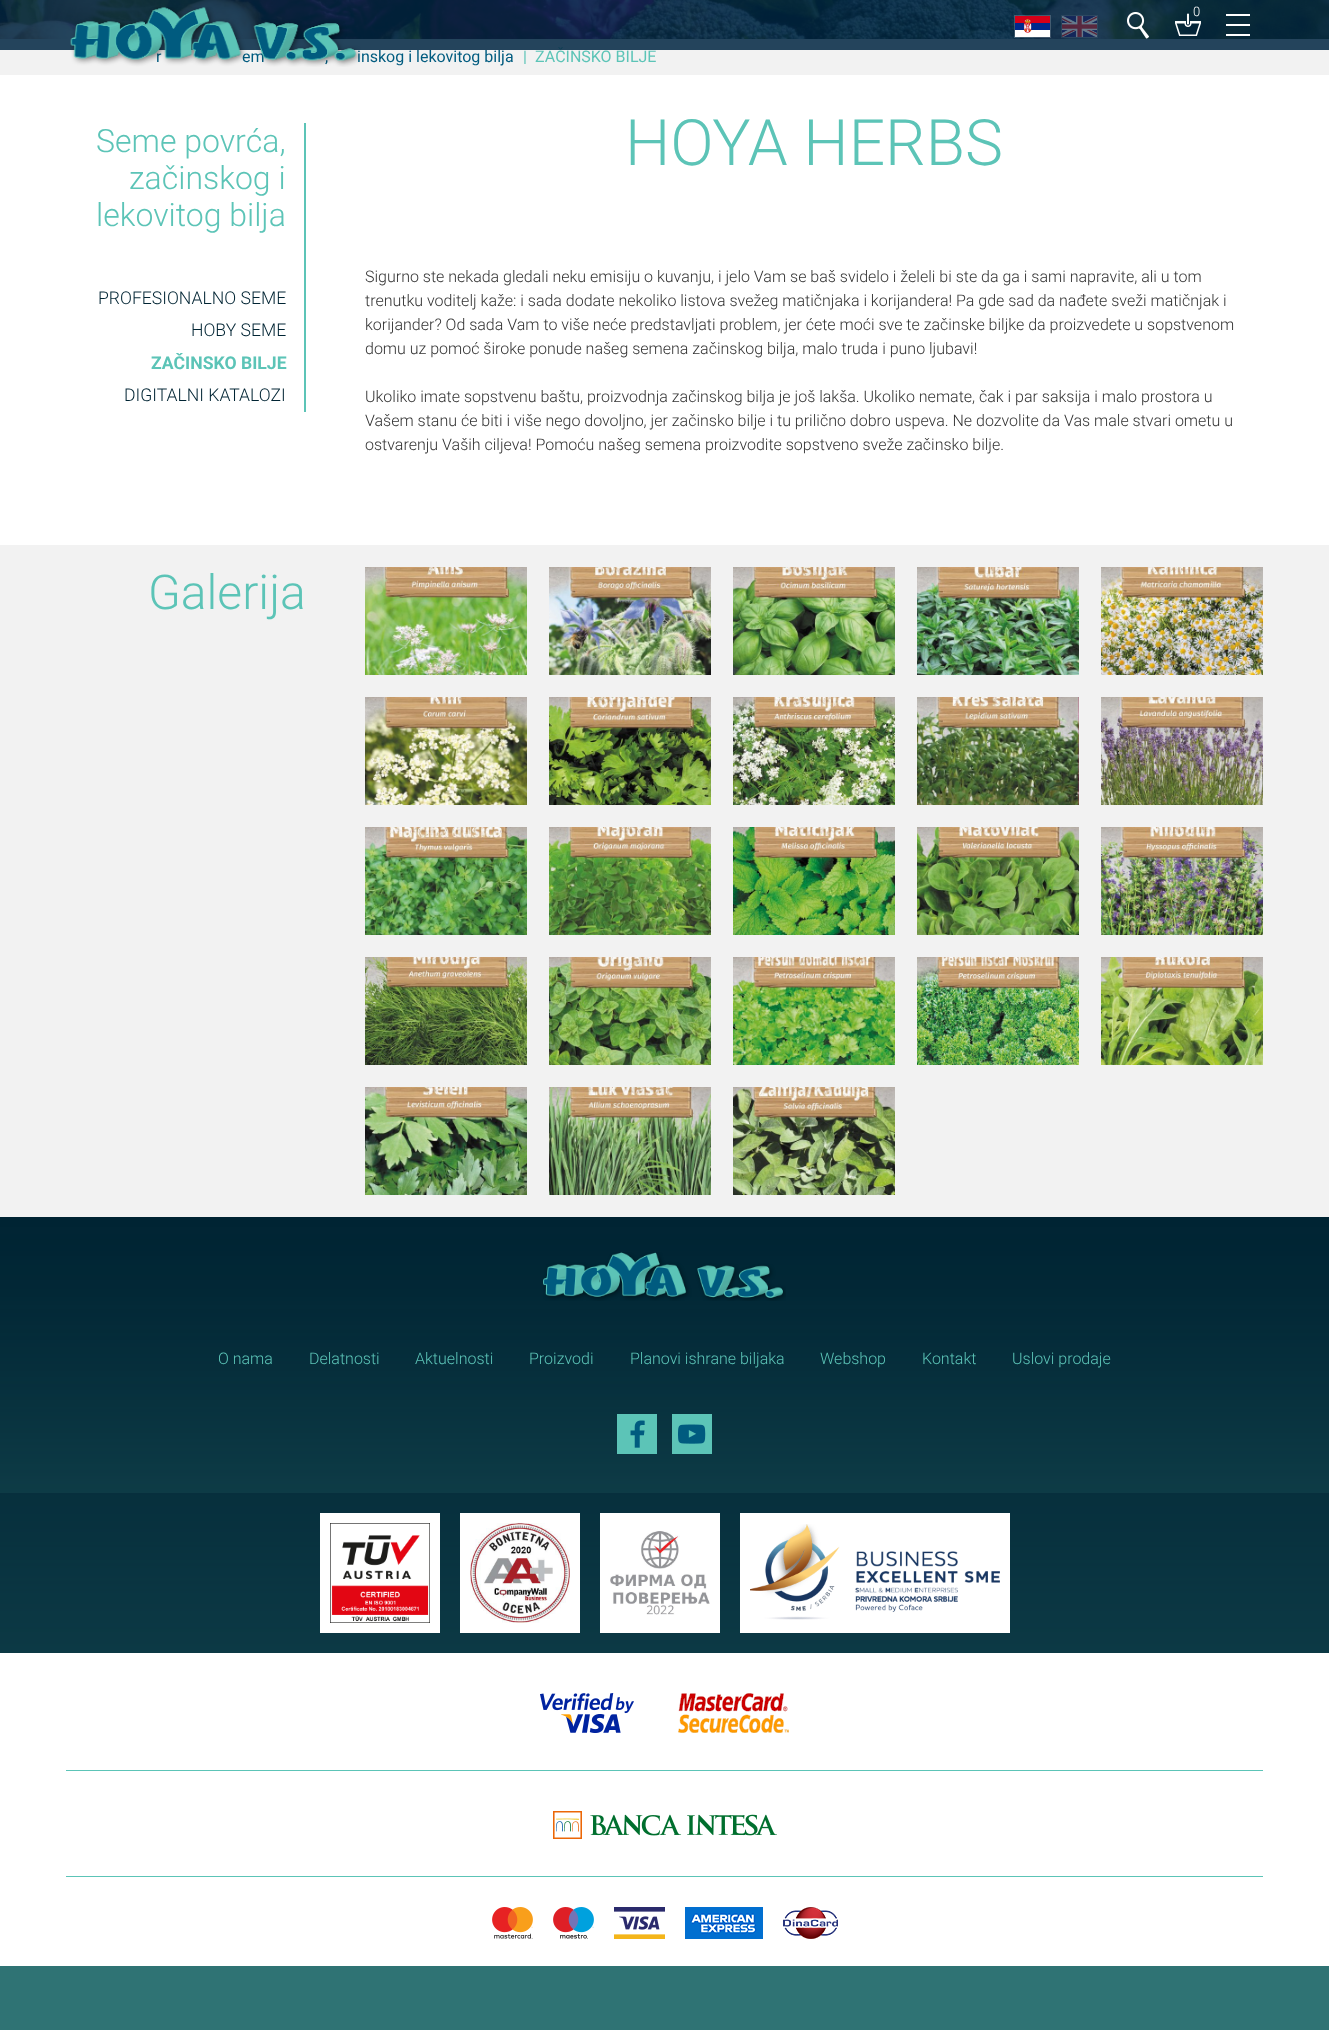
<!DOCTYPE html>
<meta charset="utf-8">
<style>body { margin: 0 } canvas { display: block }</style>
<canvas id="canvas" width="1329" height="2030"></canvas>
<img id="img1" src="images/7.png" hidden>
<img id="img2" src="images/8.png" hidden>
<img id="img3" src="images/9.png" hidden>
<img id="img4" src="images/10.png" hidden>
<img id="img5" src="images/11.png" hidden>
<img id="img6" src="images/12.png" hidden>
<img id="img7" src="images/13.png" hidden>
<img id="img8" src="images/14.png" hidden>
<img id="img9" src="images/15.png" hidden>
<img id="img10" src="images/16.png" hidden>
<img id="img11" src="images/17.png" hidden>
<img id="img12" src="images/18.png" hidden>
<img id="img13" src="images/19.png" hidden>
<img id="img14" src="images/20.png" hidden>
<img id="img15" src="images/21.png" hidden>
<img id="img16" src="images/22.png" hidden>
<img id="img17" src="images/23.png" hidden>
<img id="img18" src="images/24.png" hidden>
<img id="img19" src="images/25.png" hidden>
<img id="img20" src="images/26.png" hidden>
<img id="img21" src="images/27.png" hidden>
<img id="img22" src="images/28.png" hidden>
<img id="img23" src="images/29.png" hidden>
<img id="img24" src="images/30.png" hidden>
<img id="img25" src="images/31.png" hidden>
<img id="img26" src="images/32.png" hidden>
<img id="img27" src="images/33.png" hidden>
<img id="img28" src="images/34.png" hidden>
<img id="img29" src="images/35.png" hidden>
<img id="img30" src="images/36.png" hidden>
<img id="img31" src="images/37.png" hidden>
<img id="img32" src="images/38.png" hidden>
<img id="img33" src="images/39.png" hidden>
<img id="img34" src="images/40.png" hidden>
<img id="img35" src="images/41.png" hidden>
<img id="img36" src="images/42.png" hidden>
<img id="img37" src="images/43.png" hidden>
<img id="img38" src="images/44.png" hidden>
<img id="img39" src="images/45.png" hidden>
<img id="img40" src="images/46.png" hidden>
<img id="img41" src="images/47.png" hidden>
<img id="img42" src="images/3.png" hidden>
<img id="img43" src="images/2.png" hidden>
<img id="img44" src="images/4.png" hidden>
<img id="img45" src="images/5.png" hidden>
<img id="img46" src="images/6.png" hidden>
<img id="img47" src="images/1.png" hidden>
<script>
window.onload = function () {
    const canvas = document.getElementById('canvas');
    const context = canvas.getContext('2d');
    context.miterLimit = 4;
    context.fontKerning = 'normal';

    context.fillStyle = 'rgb(255, 255, 255)';
    context.fillRect(0, 0, 1329, 2030);
    context.drawImage(document.getElementById('img1'), 0, 0, 1329, 39);
    context.drawImage(document.getElementById('img2'), 0, 0, 1329, 39);
    context.fillStyle = 'rgb(242, 242, 242)';
    context.fillRect(0, 39, 1329, 36);
    context.fillStyle = 'rgb(92, 196, 183)';
    context.fillRect(304, 123, 2, 289);
    context.fillStyle = 'rgb(242, 242, 242)';
    context.fillRect(0, 545, 1329, 672);
    context.drawImage(document.getElementById('img3'), 365, 567, 162, 108);
    context.drawImage(document.getElementById('img4'), 549, 567, 162, 108);
    context.drawImage(document.getElementById('img5'), 733, 567, 162, 108);
    context.drawImage(document.getElementById('img6'), 917, 567, 162, 108);
    context.drawImage(document.getElementById('img7'), 1101, 567, 162, 108);
    context.drawImage(document.getElementById('img8'), 365, 697, 162, 108);
    context.drawImage(document.getElementById('img9'), 549, 697, 162, 108);
    context.drawImage(document.getElementById('img10'), 733, 697, 162, 108);
    context.drawImage(document.getElementById('img11'), 917, 697, 162, 108);
    context.drawImage(document.getElementById('img12'), 1101, 697, 162, 108);
    context.drawImage(document.getElementById('img13'), 365, 827, 162, 108);
    context.drawImage(document.getElementById('img14'), 549, 827, 162, 108);
    context.drawImage(document.getElementById('img15'), 733, 827, 162, 108);
    context.drawImage(document.getElementById('img16'), 917, 827, 162, 108);
    context.drawImage(document.getElementById('img17'), 1101, 827, 162, 108);
    context.drawImage(document.getElementById('img18'), 365, 957, 162, 108);
    context.drawImage(document.getElementById('img19'), 549, 957, 162, 108);
    context.drawImage(document.getElementById('img20'), 733, 957, 162, 108);
    context.drawImage(document.getElementById('img21'), 917, 957, 162, 108);
    context.drawImage(document.getElementById('img22'), 1101, 957, 162, 108);
    context.drawImage(document.getElementById('img23'), 365, 1087, 162, 108);
    context.drawImage(document.getElementById('img24'), 549, 1087, 162, 108);
    context.drawImage(document.getElementById('img25'), 733, 1087, 162, 108);
    context.fillStyle = 'rgb(47, 115, 116)';
    context.fillRect(0, 1234, 1329, 796);
    context.drawImage(document.getElementById('img26'), 0, 1217, 1329, 436);
    context.drawImage(document.getElementById('img27'), 543, 1252, 243, 49);
    context.fillStyle = 'rgb(92, 196, 183)';
    context.fillRect(617, 1414, 40, 40);
    context.drawImage(document.getElementById('img28'), 630, 1420, 15, 28);
    context.fillRect(672, 1414, 40, 40);
    context.drawImage(document.getElementById('img29'), 678, 1424, 28, 20);
    context.fillStyle = 'rgba(0, 36, 51, 0.5)';
    context.fillRect(0, 1493, 1329, 160);
    context.fillStyle = 'rgb(255, 255, 255)';
    context.fillRect(320, 1513, 120, 120);
    context.drawImage(document.getElementById('img30'), 330, 1523, 100, 100);
    context.fillRect(460, 1513, 120, 120);
    context.drawImage(document.getElementById('img31'), 470, 1523, 100, 100);
    context.fillRect(600, 1513, 120, 120);
    context.drawImage(document.getElementById('img32'), 610, 1531, 100, 84);
    context.fillRect(740, 1513, 270, 120);
    context.drawImage(document.getElementById('img33'), 750, 1524, 250, 96);
    context.fillRect(0, 1653, 1329, 313);
    context.drawImage(document.getElementById('img34'), 540, 1693, 94, 40);
    context.drawImage(document.getElementById('img35'), 678, 1693, 111, 40);
    context.fillStyle = 'rgb(92, 196, 183)';
    context.fillRect(66, 1770, 1197, 1);
    context.drawImage(document.getElementById('img36'), 553, 1811, 224, 28);
    context.fillRect(66, 1876, 1197, 1);
    context.drawImage(document.getElementById('img37'), 492, 1907, 41, 32);
    context.drawImage(document.getElementById('img38'), 553, 1907, 41, 32);
    context.drawImage(document.getElementById('img39'), 614, 1907, 51, 32);
    context.drawImage(document.getElementById('img40'), 685, 1907, 78, 32);
    context.drawImage(document.getElementById('img41'), 783, 1907, 55, 32);
    context.font = '16px Roboto';
    context.fillStyle = 'rgb(0, 91, 127)';
    context.fillText('r', 156, 62);
    context.fillText('em', 242, 62);
    context.fillText(',', 325, 62);
    context.fillText('inskog i lekovitog bilja', 357, 62);
    context.fillStyle = 'rgb(92, 196, 183)';
    context.fillText('|', 523, 62);
    context.fillText('ZAČINSKO BILJE', 535, 62);
    context.fillStyle = 'rgba(0, 38, 66, 0.85)';
    context.fillRect(0, 0, 1329, 50);
    context.strokeStyle = 'rgba(255, 255, 255, 0.07)';
    context.strokeRect(1061.5, 15.5, 36, 22);
    context.drawImage(document.getElementById('img42'), 1062, 16, 35, 21);
    context.strokeStyle = 'rgba(255, 255, 255, 0.2)';
    context.strokeRect(1014.5, 15.5, 36, 22);
    context.drawImage(document.getElementById('img43'), 1015, 16, 35, 21);
    context.drawImage(document.getElementById('img44'), 1127, 12, 22, 27);
    context.drawImage(document.getElementById('img45'), 1175, 13, 26, 23);
    context.font = '300 13px Roboto';
    context.fillStyle = 'rgb(255, 255, 255)';
    context.fillText('0', 1193, 16);
    context.drawImage(document.getElementById('img46'), 1226, 14, 24, 22);
    context.drawImage(document.getElementById('img47'), 70, 7, 291, 60);
    context.font = '300 32px Roboto';
    context.fillStyle = 'rgb(92, 196, 183)';
    context.fillText('Seme povrća,', 96, 152);
    context.fillText('začinskog i', 129, 189);
    context.fillText('lekovitog bilja', 96, 226);
    context.font = '300 17.6px Roboto';
    context.fillStyle = 'rgb(0, 36, 51)';
    context.fillText('PROFESIONALNO SEME', 98, 304);
    context.fillText('HOBY SEME', 191, 336);
    context.font = 'bold 17.6px Roboto';
    context.fillStyle = 'rgb(92, 196, 183)';
    context.fillText('ZAČINSKO BILJE', 151, 369);
    context.font = '300 17.6px Roboto';
    context.fillStyle = 'rgb(0, 36, 51)';
    context.fillText('DIGITALNI KATALOZI', 124, 401);
    context.font = '300 64px Roboto';
    context.fillStyle = 'rgb(92, 196, 183)';
    context.fillText('HOYA HERBS', 625, 165);
    context.font = '300 16px Roboto';
    context.fillStyle = 'rgb(51, 51, 51)';
    context.fillText('Sigurno ste nekada gledali neku emisiju o kuvanju, i jelo Vam se baš svidelo i želeli bi ste da ga i sami napravite, ali u tom', 365, 282);
    context.fillText('trenutku voditelj kaže: i sada dodate nekoliko listova svežeg matičnjaka i korijandera! Pa gde sad da nađete sveži matičnjak i', 365, 306);
    context.fillText('korijander? Od sada Vam to više neće predstavljati problem, jer ćete moći sve te začinske biljke da proizvedete u sopstvenom', 365, 330);
    context.fillText('domu uz pomoć široke ponude našeg semena začinskog bilja, malo truda i puno ljubavi!', 365, 354);
    context.fillText('Ukoliko imate sopstvenu baštu, proizvodnja začinskog bilja je još lakša. Ukoliko nemate, čak i par saksija i malo prostora u', 365, 402);
    context.fillText('Vašem stanu će biti i više nego dovoljno, jer začinsko bilje i tu prilično dobro uspeva. Ne dozvolite da Vas male stvari ometu u', 365, 426);
    context.fillText('ostvarenju Vaših ciljeva! Pomoću našeg semena proizvodite sopstveno sveže začinsko bilje.', 365, 450);
    context.font = '300 48px Roboto';
    context.fillStyle = 'rgb(92, 196, 183)';
    context.fillText('Galerija', 148, 609);
    context.font = '300 16px Roboto';
    context.fillText('O nama', 218, 1364);
    context.fillText('Delatnosti', 309, 1364);
    context.fillText('Aktuelnosti', 415, 1364);
    context.fillText('Proizvodi', 529, 1364);
    context.fillText('Planovi ishrane biljaka', 630, 1364);
    context.fillText('Webshop', 820, 1364);
    context.fillText('Kontakt', 922, 1364);
    context.fillText('Uslovi prodaje', 1012, 1364);
};
</script>
